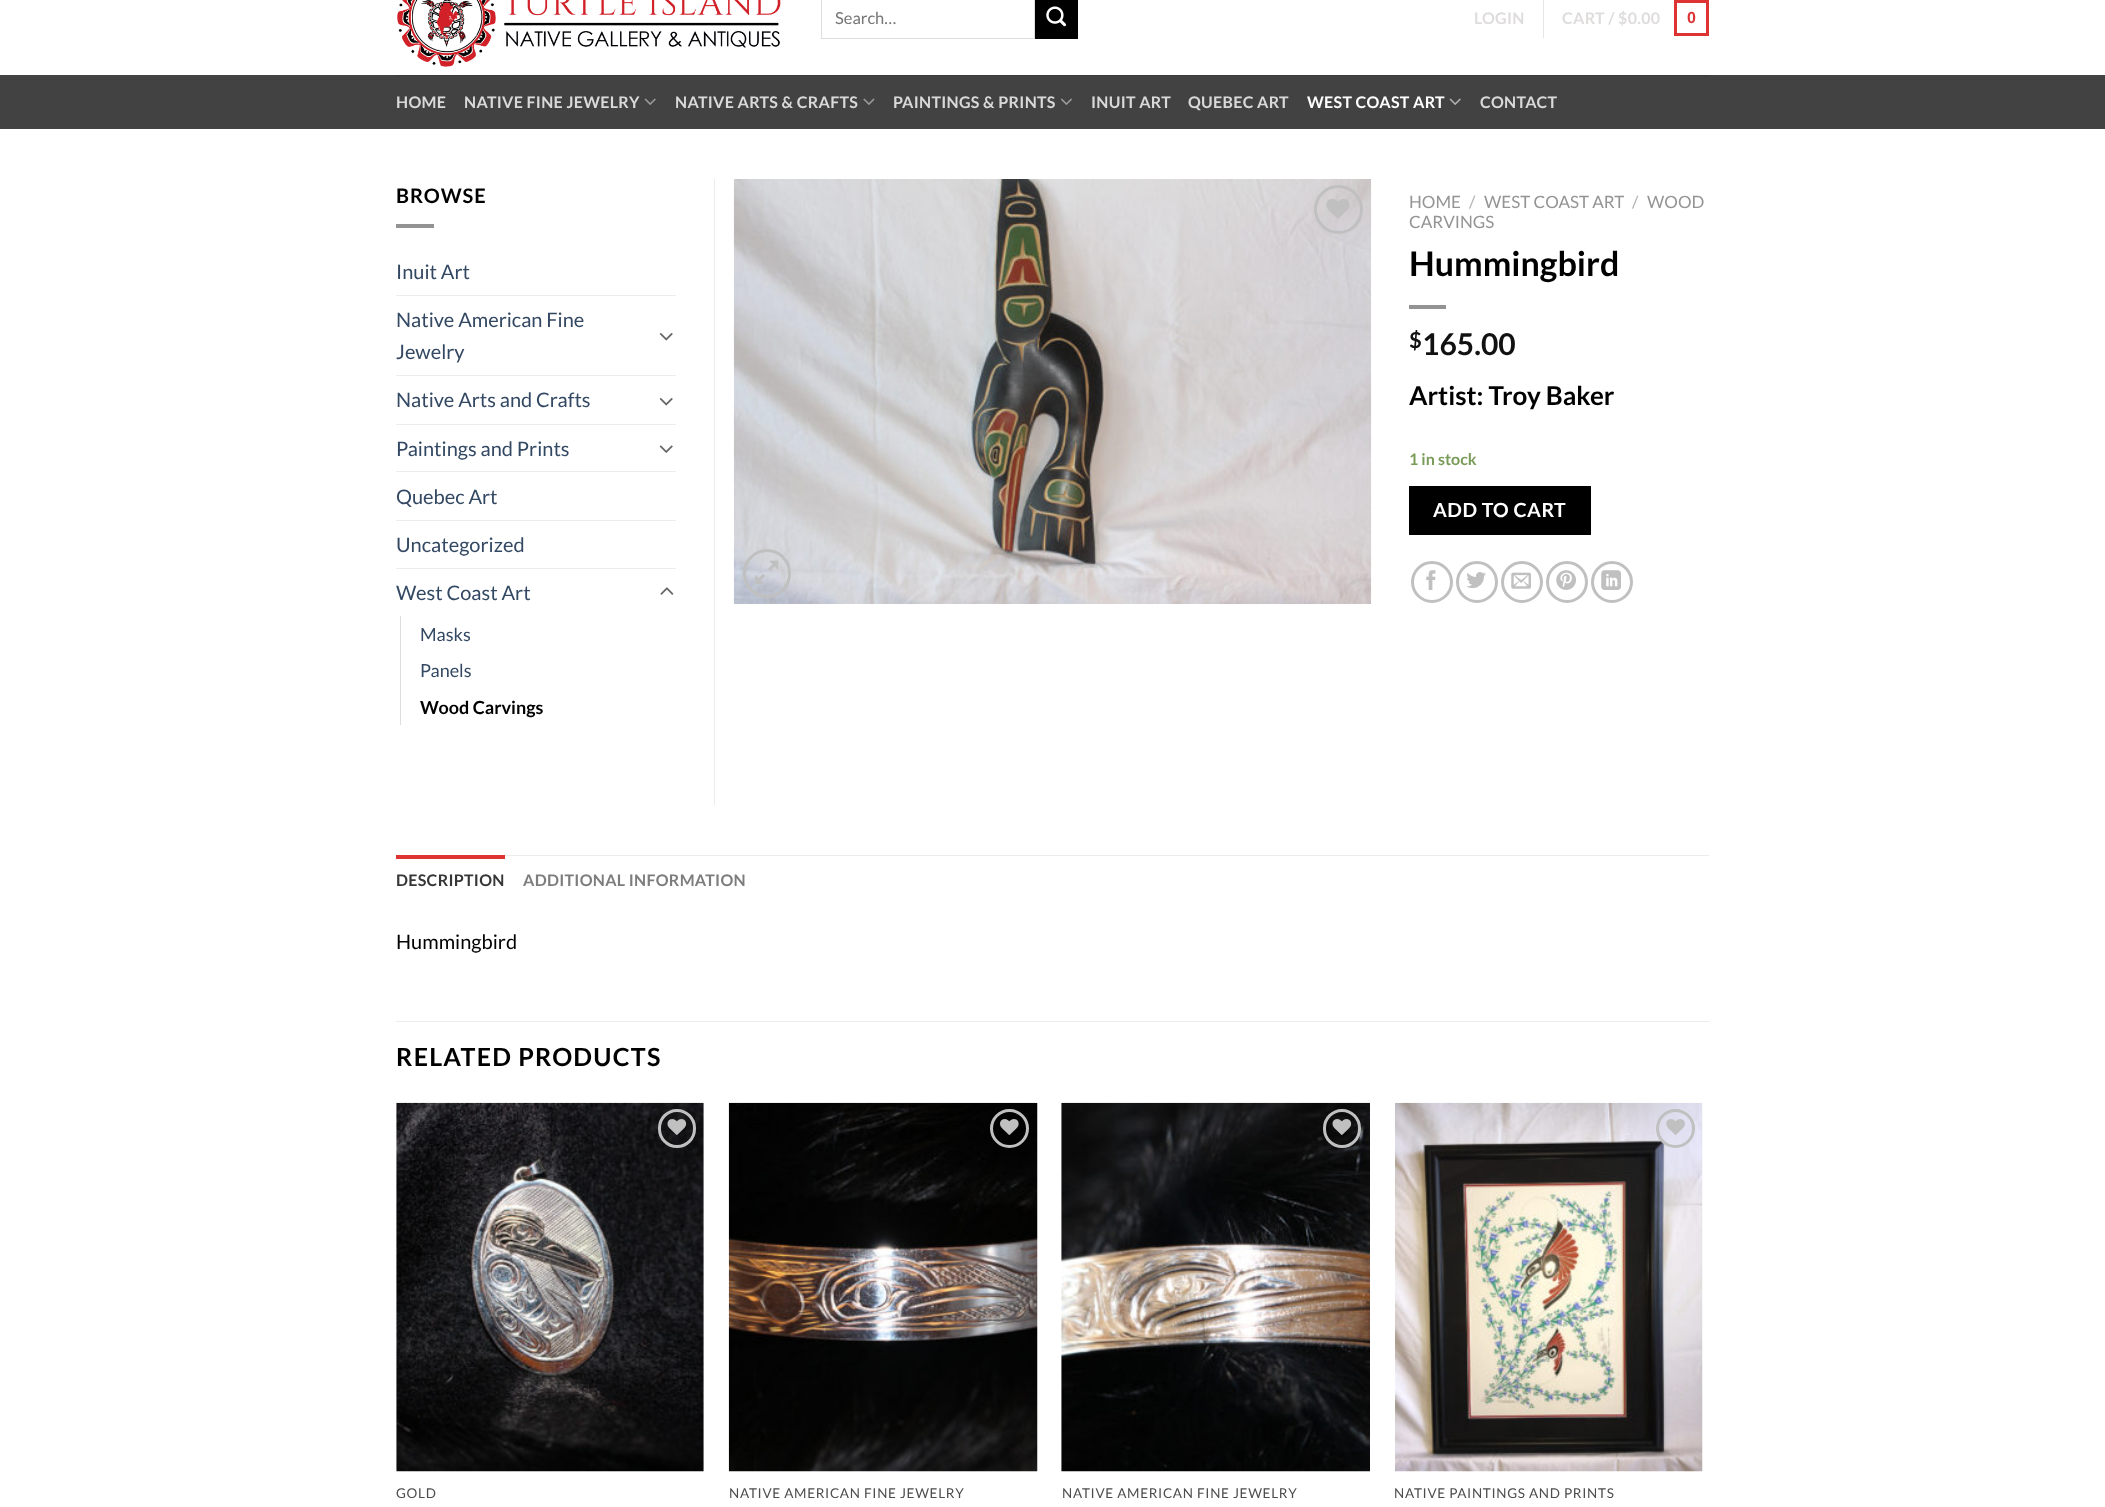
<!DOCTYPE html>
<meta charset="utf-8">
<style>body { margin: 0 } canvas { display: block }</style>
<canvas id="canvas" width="2105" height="1507"></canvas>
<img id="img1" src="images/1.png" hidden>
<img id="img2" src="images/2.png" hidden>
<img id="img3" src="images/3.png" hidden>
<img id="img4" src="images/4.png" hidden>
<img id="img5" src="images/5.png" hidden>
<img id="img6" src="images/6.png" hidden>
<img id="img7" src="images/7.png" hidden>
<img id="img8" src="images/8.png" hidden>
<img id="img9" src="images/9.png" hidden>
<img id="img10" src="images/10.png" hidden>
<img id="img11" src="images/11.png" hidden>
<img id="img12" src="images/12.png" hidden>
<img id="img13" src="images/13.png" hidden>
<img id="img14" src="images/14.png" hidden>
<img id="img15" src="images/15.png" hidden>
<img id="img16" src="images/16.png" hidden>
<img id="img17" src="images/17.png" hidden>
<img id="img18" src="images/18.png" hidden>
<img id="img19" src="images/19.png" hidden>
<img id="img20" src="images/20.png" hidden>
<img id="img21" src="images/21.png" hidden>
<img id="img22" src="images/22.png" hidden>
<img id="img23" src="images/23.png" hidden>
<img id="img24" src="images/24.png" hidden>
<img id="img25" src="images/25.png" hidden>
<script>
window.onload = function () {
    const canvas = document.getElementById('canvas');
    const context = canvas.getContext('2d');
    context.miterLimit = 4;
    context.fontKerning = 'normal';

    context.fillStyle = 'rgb(255, 255, 255)';
    context.fillRect(0, 0, 2105, 1507);
    context.drawImage(document.getElementById('img1'), 397, 0, 384, 67);
    context.strokeStyle = 'rgb(221, 221, 221)';
    context.strokeRect(821.5, -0.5, 213, 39);
    context.fillStyle = 'rgb(0, 0, 0)';
    context.fillRect(1035, 0, 43, 39);
    context.drawImage(document.getElementById('img2'), 1046, 6, 20, 21);
    context.fillStyle = 'rgb(230, 230, 230)';
    context.fillRect(1543, 0, 1, 38);
    context.strokeStyle = 'rgb(221, 51, 51)';
    context.lineWidth = 3;
    context.strokeRect(1675.5, 1.5, 32, 33);
    context.fillStyle = 'rgb(66, 66, 66)';
    context.fillRect(0, 75, 2105, 54);
    context.fillStyle = 'rgb(59, 59, 59)';
    context.fillRect(396, 75, 1313, 1);
    context.drawImage(document.getElementById('img3'), 644, 98, 12, 7);
    context.drawImage(document.getElementById('img4'), 863, 98, 12, 7);
    context.drawImage(document.getElementById('img5'), 1061, 98, 11, 7);
    context.drawImage(document.getElementById('img6'), 1449, 98, 12, 7);
    context.fillStyle = 'rgb(236, 236, 236)';
    context.fillRect(714, 179, 1, 626);
    context.fillStyle = 'rgb(147, 147, 147)';
    context.fillRect(396, 224, 38, 4);
    context.fillStyle = 'rgb(236, 236, 236)';
    context.fillRect(396, 295, 280, 1);
    context.drawImage(document.getElementById('img7'), 659, 333, 14, 8);
    context.fillRect(396, 375, 280, 1);
    context.drawImage(document.getElementById('img7'), 659, 398, 14, 8);
    context.fillRect(396, 424, 280, 1);
    context.drawImage(document.getElementById('img8'), 659, 445, 14, 8);
    context.fillRect(396, 471, 280, 1);
    context.fillRect(396, 520, 280, 1);
    context.fillRect(396, 568, 280, 1);
    context.drawImage(document.getElementById('img9'), 660, 587, 14, 8);
    context.fillStyle = 'rgb(221, 221, 221)';
    context.fillRect(400, 616, 1, 109);
    context.drawImage(document.getElementById('img10'), 733, 179, 639, 425);
    context.beginPath();
    context.arc(1338.5, 209.5, 23, 0, 2 * Math.PI);
    context.strokeStyle = 'rgb(192, 192, 192)';
    context.stroke();
    context.drawImage(document.getElementById('img11'), 1326, 199, 24, 20);
    context.beginPath();
    context.roundRect(744.5, 550.5, 45, 46, 22.5);
    context.stroke();
    context.drawImage(document.getElementById('img12'), 755, 560, 24, 24);
    context.fillStyle = 'rgb(147, 147, 147)';
    context.fillRect(1409, 305, 37, 4);
    context.fillStyle = 'rgb(0, 0, 0)';
    context.fillRect(1409, 486, 182, 49);
    context.beginPath();
    context.arc(1432, 582, 19.5, 0, 2 * Math.PI);
    context.stroke();
    context.drawImage(document.getElementById('img13'), 1426, 570, 10, 20);
    context.beginPath();
    context.arc(1477, 582, 19.5, 0, 2 * Math.PI);
    context.stroke();
    context.drawImage(document.getElementById('img14'), 1466, 572, 20, 17);
    context.beginPath();
    context.arc(1522, 582, 19.5, 0, 2 * Math.PI);
    context.stroke();
    context.drawImage(document.getElementById('img15'), 1511, 572, 20, 17);
    context.beginPath();
    context.arc(1567, 582, 19.5, 0, 2 * Math.PI);
    context.stroke();
    context.drawImage(document.getElementById('img16'), 1556, 570, 20, 20);
    context.beginPath();
    context.arc(1612, 582, 19.5, 0, 2 * Math.PI);
    context.stroke();
    context.drawImage(document.getElementById('img17'), 1601, 570, 20, 20);
    context.fillStyle = 'rgb(236, 236, 236)';
    context.fillRect(505, 855, 1204, 1);
    context.fillStyle = 'rgb(221, 51, 51)';
    context.fillRect(396, 855, 109, 4);
    context.fillStyle = 'rgb(236, 236, 236)';
    context.fillRect(396, 1021, 1313, 1);
    context.drawImage(document.getElementById('img18'), 396, 1102, 308, 370);
    context.beginPath();
    context.roundRect(659.5, 1110.5, 35, 36, 17.5);
    context.stroke();
    context.drawImage(document.getElementById('img19'), 667, 1119, 20, 16);
    context.drawImage(document.getElementById('img20'), 728, 1102, 310, 370);
    context.beginPath();
    context.arc(1009.5, 1128.5, 18, 0, 2 * Math.PI);
    context.stroke();
    context.drawImage(document.getElementById('img21'), 1000, 1119, 19, 16);
    context.drawImage(document.getElementById('img22'), 1061, 1102, 309, 370);
    context.beginPath();
    context.roundRect(1324.5, 1110.5, 35, 36, 17.5);
    context.stroke();
    context.drawImage(document.getElementById('img23'), 1332, 1119, 20, 16);
    context.drawImage(document.getElementById('img24'), 1395, 1102, 308, 370);
    context.beginPath();
    context.arc(1675.5, 1128.5, 18, 0, 2 * Math.PI);
    context.stroke();
    context.drawImage(document.getElementById('img25'), 1666, 1119, 19, 16);
    context.font = '16.5px Lato';
    context.fillStyle = 'rgb(117, 117, 117)';
    context.fillText('Search…', 835, 24);
    context.letterSpacing = '0.3px';
    context.font = 'bold 16px Lato';
    context.fillStyle = 'rgb(223, 220, 220)';
    context.fillText('LOGIN', 1474, 24);
    context.fillText('CART / $0.00', 1562, 24);
    context.font = 'bold 16px Liberation Sans';
    context.fillStyle = 'rgb(221, 51, 51)';
    context.fillText('0', 1687, 23);
    context.font = 'bold 16px Lato';
    context.fillStyle = 'rgb(217, 217, 217)';
    context.fillText('HOME', 396, 108);
    context.fillText('NATIVE FINE JEWELRY', 464, 108);
    context.fillText('NATIVE ARTS & CRAFTS', 675, 108);
    context.fillText('PAINTINGS & PRINTS', 893, 108);
    context.fillText('INUIT ART', 1091, 108);
    context.fillText('QUEBEC ART', 1188, 108);
    context.fillStyle = 'rgb(255, 255, 255)';
    context.fillText('WEST COAST ART', 1307, 108);
    context.fillStyle = 'rgb(217, 217, 217)';
    context.fillText('CONTACT', 1480, 108);
    context.letterSpacing = '1px';
    context.font = 'bold 20px Lato';
    context.fillStyle = 'rgb(0, 0, 0)';
    context.fillText('BROWSE', 396, 203);
    context.letterSpacing = '0px';
    context.font = '20px Lato';
    context.fillStyle = 'rgb(51, 72, 98)';
    context.fillText('Inuit Art', 396, 279);
    context.fillText('Native American Fine', 396, 327);
    context.fillText('Jewelry', 396, 359);
    context.fillText('Native Arts and Crafts', 396, 407);
    context.fillText('Paintings and Prints', 396, 456);
    context.fillText('Quebec Art', 396, 504);
    context.fillText('Uncategorized', 396, 552);
    context.fillText('West Coast Art', 396, 600);
    context.font = '18px Lato';
    context.fillText('Masks', 420, 641);
    context.fillText('Panels', 420, 677);
    context.font = 'bold 18px Lato';
    context.fillStyle = 'rgb(0, 0, 0)';
    context.fillText('Wood Carvings', 420, 714);
    context.font = '17px Lato';
    context.fillStyle = 'rgb(148, 148, 148)';
    context.fillText('HOME', 1409, 208);
    context.fillStyle = 'rgb(178, 178, 178)';
    context.fillText('/', 1469, 208);
    context.fillStyle = 'rgb(148, 148, 148)';
    context.fillText('WEST COAST ART', 1484, 208);
    context.fillStyle = 'rgb(178, 178, 178)';
    context.fillText('/', 1632, 208);
    context.fillStyle = 'rgb(148, 148, 148)';
    context.fillText('WOOD', 1647, 208);
    context.fillText('CARVINGS', 1409, 228);
    context.font = 'bold 34px Lato';
    context.fillStyle = 'rgb(0, 0, 0)';
    context.fillText('Hummingbird', 1409, 276);
    context.font = 'bold 22px Lato';
    context.fillStyle = 'rgb(17, 17, 17)';
    context.fillText('$', 1409, 348);
    context.font = 'bold 30px Lato';
    context.fillText('165.00', 1422, 355);
    context.font = 'bold 26px Lato';
    context.fillStyle = 'rgb(0, 0, 0)';
    context.fillText('Artist: Troy Baker', 1409, 405);
    context.font = 'bold 16px Lato';
    context.fillStyle = 'rgb(122, 156, 89)';
    context.fillText('1 in stock', 1409, 465);
    context.letterSpacing = '0.5px';
    context.font = 'bold 19.5px Lato';
    context.fillStyle = 'rgb(255, 255, 255)';
    context.fillText('ADD TO CART', 1433, 517);
    context.letterSpacing = '0.3px';
    context.font = 'bold 16px Lato';
    context.fillStyle = 'rgb(54, 54, 54)';
    context.fillText('DESCRIPTION', 396, 886);
    context.fillStyle = 'rgb(125, 125, 125)';
    context.fillText('ADDITIONAL INFORMATION', 523, 886);
    context.letterSpacing = '0px';
    context.font = '20px Lato';
    context.fillStyle = 'rgb(0, 0, 0)';
    context.fillText('Hummingbird', 396, 949);
    context.letterSpacing = '1.25px';
    context.font = 'bold 25px Lato';
    context.fillText('RELATED PRODUCTS', 396, 1066);
    context.letterSpacing = '0.7px';
    context.font = '13.5px Lato';
    context.fillStyle = 'rgb(77, 77, 77)';
    context.fillText('GOLD', 396, 1498);
    context.fillText('NATIVE AMERICAN FINE JEWELRY', 729, 1498);
    context.fillText('NATIVE AMERICAN FINE JEWELRY', 1062, 1498);
    context.fillText('NATIVE PAINTINGS AND PRINTS', 1394, 1498);
};
</script>
